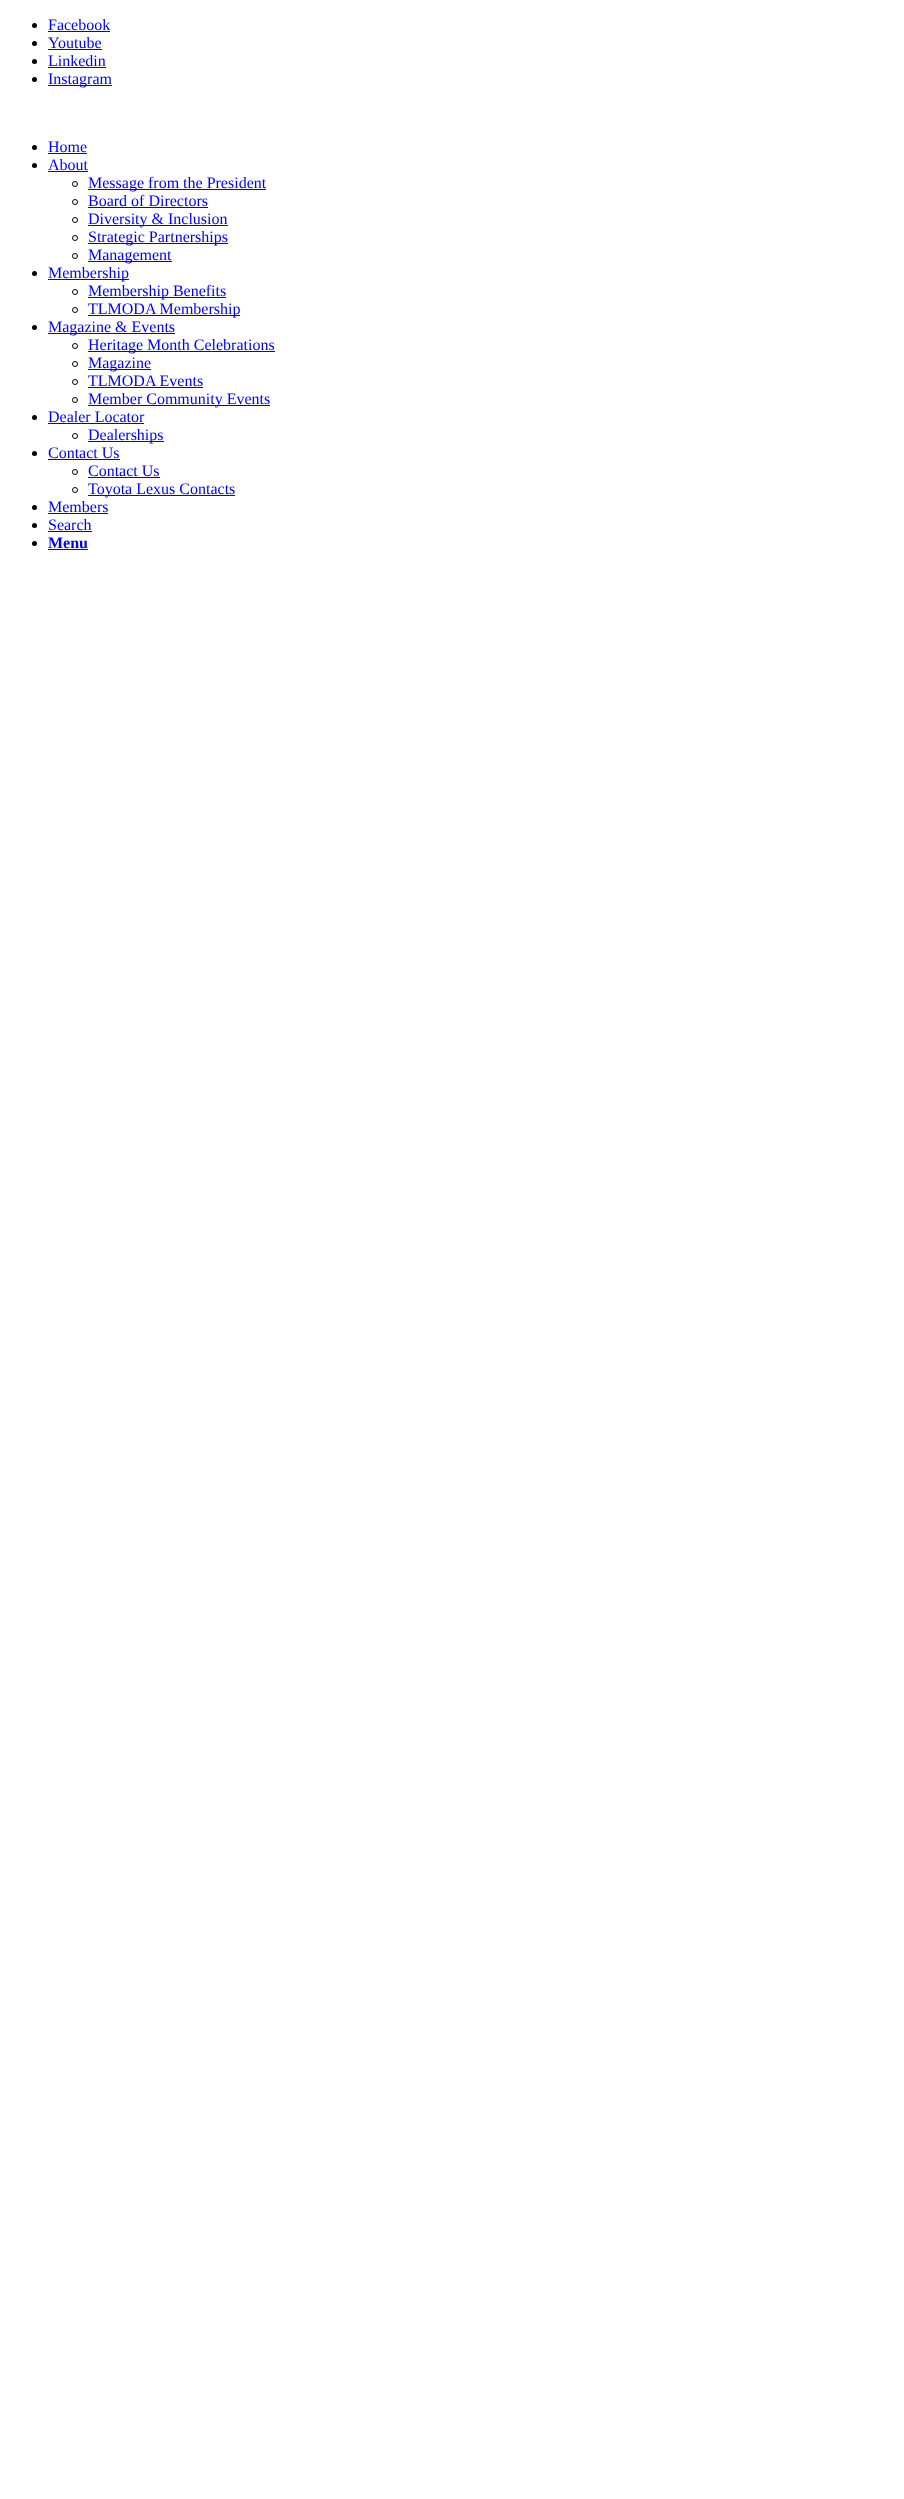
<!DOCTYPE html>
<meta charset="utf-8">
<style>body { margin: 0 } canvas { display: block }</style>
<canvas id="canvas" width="904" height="2499"></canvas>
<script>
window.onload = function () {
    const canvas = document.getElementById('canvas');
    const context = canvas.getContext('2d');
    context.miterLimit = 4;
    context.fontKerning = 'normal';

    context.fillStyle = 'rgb(255, 255, 255)';
    context.fillRect(0, 0, 904, 2499);
    context.fillStyle = 'rgb(0, 0, 0)';
    context.beginPath();
    context.arc(34.5, 25.5, 2.5, 0, 2 * Math.PI);
    context.fill();
    context.fillStyle = 'rgb(0, 0, 238)';
    context.fillRect(48, 31, 62, 1);
    context.fillStyle = 'rgb(0, 0, 0)';
    context.beginPath();
    context.arc(34.5, 43.5, 2.5, 0, 2 * Math.PI);
    context.fill();
    context.fillStyle = 'rgb(0, 0, 238)';
    context.fillRect(48, 49, 54, 1);
    context.fillStyle = 'rgb(0, 0, 0)';
    context.beginPath();
    context.arc(34.5, 61.5, 2.5, 0, 2 * Math.PI);
    context.fill();
    context.fillStyle = 'rgb(0, 0, 238)';
    context.fillRect(48, 67, 58, 1);
    context.fillStyle = 'rgb(0, 0, 0)';
    context.beginPath();
    context.arc(34.5, 79.5, 2.5, 0, 2 * Math.PI);
    context.fill();
    context.fillStyle = 'rgb(0, 0, 238)';
    context.fillRect(48, 85, 64, 1);
    context.fillStyle = 'rgb(0, 0, 0)';
    context.beginPath();
    context.arc(34.5, 147.5, 2.5, 0, 2 * Math.PI);
    context.fill();
    context.fillStyle = 'rgb(0, 0, 238)';
    context.fillRect(48, 153, 39, 1);
    context.fillStyle = 'rgb(0, 0, 0)';
    context.beginPath();
    context.arc(34.5, 165.5, 2.5, 0, 2 * Math.PI);
    context.fill();
    context.fillStyle = 'rgb(0, 0, 238)';
    context.fillRect(48, 171, 40, 1);
    context.beginPath();
    context.arc(75, 184, 2.5, 0, 2 * Math.PI);
    context.strokeStyle = 'rgb(0, 0, 0)';
    context.stroke();
    context.fillRect(88, 189, 178, 1);
    context.beginPath();
    context.arc(75, 202, 2.5, 0, 2 * Math.PI);
    context.stroke();
    context.fillRect(88, 207, 120, 1);
    context.beginPath();
    context.arc(75, 220, 2.5, 0, 2 * Math.PI);
    context.stroke();
    context.fillRect(88, 225, 140, 1);
    context.beginPath();
    context.arc(75, 238, 2.5, 0, 2 * Math.PI);
    context.stroke();
    context.fillRect(88, 243, 140, 1);
    context.beginPath();
    context.arc(75, 256, 2.5, 0, 2 * Math.PI);
    context.stroke();
    context.fillRect(88, 261, 84, 1);
    context.fillStyle = 'rgb(0, 0, 0)';
    context.beginPath();
    context.arc(34.5, 273.5, 2.5, 0, 2 * Math.PI);
    context.fill();
    context.fillStyle = 'rgb(0, 0, 238)';
    context.fillRect(48, 279, 81, 1);
    context.beginPath();
    context.arc(75, 292, 2.5, 0, 2 * Math.PI);
    context.stroke();
    context.fillRect(88, 297, 138, 1);
    context.beginPath();
    context.arc(75, 310, 2.5, 0, 2 * Math.PI);
    context.stroke();
    context.fillRect(88, 315, 152, 1);
    context.fillStyle = 'rgb(0, 0, 0)';
    context.beginPath();
    context.arc(34.5, 327.5, 2.5, 0, 2 * Math.PI);
    context.fill();
    context.fillStyle = 'rgb(0, 0, 238)';
    context.fillRect(48, 333, 127, 1);
    context.beginPath();
    context.arc(75, 346, 2.5, 0, 2 * Math.PI);
    context.stroke();
    context.fillRect(88, 351, 187, 1);
    context.beginPath();
    context.arc(75, 364, 2.5, 0, 2 * Math.PI);
    context.stroke();
    context.fillRect(88, 369, 63, 1);
    context.beginPath();
    context.arc(75, 382, 2.5, 0, 2 * Math.PI);
    context.stroke();
    context.fillRect(88, 387, 115, 1);
    context.beginPath();
    context.arc(75, 400, 2.5, 0, 2 * Math.PI);
    context.stroke();
    context.fillRect(88, 405, 182, 1);
    context.fillStyle = 'rgb(0, 0, 0)';
    context.beginPath();
    context.arc(34.5, 417.5, 2.5, 0, 2 * Math.PI);
    context.fill();
    context.fillStyle = 'rgb(0, 0, 238)';
    context.fillRect(48, 423, 96, 1);
    context.beginPath();
    context.arc(75, 436, 2.5, 0, 2 * Math.PI);
    context.stroke();
    context.fillRect(88, 441, 76, 1);
    context.fillStyle = 'rgb(0, 0, 0)';
    context.beginPath();
    context.arc(34.5, 453.5, 2.5, 0, 2 * Math.PI);
    context.fill();
    context.fillStyle = 'rgb(0, 0, 238)';
    context.fillRect(48, 459, 72, 1);
    context.beginPath();
    context.arc(75, 472, 2.5, 0, 2 * Math.PI);
    context.stroke();
    context.fillRect(88, 477, 72, 1);
    context.beginPath();
    context.arc(75, 490, 2.5, 0, 2 * Math.PI);
    context.stroke();
    context.fillRect(88, 495, 147, 1);
    context.fillStyle = 'rgb(0, 0, 0)';
    context.beginPath();
    context.arc(34.5, 507.5, 2.5, 0, 2 * Math.PI);
    context.fill();
    context.fillStyle = 'rgb(0, 0, 238)';
    context.fillRect(48, 513, 60, 1);
    context.fillStyle = 'rgb(0, 0, 0)';
    context.beginPath();
    context.arc(34.5, 525.5, 2.5, 0, 2 * Math.PI);
    context.fill();
    context.fillStyle = 'rgb(0, 0, 238)';
    context.fillRect(48, 531, 44, 1);
    context.fillStyle = 'rgb(0, 0, 0)';
    context.beginPath();
    context.arc(34.5, 543.5, 2.5, 0, 2 * Math.PI);
    context.fill();
    context.fillStyle = 'rgb(0, 0, 238)';
    context.fillRect(48, 549, 40, 1);
    context.font = '16px Liberation Serif';
    context.fillText('Facebook', 48, 30);
    context.fillText('Youtube', 48, 48);
    context.fillText('Linkedin', 48, 66);
    context.fillText('Instagram', 48, 84);
    context.fillText('Home', 48, 152);
    context.fillText('About', 48, 170);
    context.fillText('Message from the President', 88, 188);
    context.fillText('Board of Directors', 88, 206);
    context.fillText('Diversity & Inclusion', 88, 224);
    context.fillText('Strategic Partnerships', 88, 242);
    context.fillText('Management', 88, 260);
    context.fillText('Membership', 48, 278);
    context.fillText('Membership Benefits', 88, 296);
    context.fillText('TLMODA Membership', 88, 314);
    context.fillText('Magazine & Events', 48, 332);
    context.fillText('Heritage Month Celebrations', 88, 350);
    context.fillText('Magazine', 88, 368);
    context.fillText('TLMODA Events', 88, 386);
    context.fillText('Member Community Events', 88, 404);
    context.fillText('Dealer Locator', 48, 422);
    context.fillText('Dealerships', 88, 440);
    context.fillText('Contact Us', 48, 458);
    context.fillText('Contact Us', 88, 476);
    context.fillText('Toyota Lexus Contacts', 88, 494);
    context.fillText('Members', 48, 512);
    context.fillText('Search', 48, 530);
    context.font = 'bold 16px Liberation Serif';
    context.fillText('Menu', 48, 548);
};
</script>
